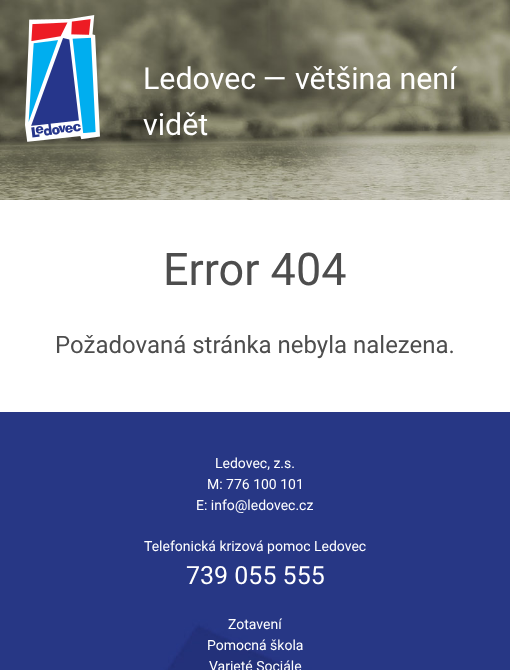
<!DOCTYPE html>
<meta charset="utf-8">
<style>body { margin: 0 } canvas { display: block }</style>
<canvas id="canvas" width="510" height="670"></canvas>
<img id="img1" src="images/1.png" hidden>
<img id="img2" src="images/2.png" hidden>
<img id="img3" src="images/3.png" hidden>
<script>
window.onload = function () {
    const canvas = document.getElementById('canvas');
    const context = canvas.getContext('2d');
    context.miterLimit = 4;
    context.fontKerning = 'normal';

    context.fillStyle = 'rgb(255, 255, 255)';
    context.fillRect(0, 0, 510, 670);
    context.drawImage(document.getElementById('img1'), 0, 0, 510, 200);
    context.drawImage(document.getElementById('img2'), 25, 15, 75, 127);
    context.drawImage(document.getElementById('img3'), 0, 412, 510, 258);
    context.font = '30.4px Roboto';
    context.fillText('Ledovec — většina není', 143, 89);
    context.fillText('vidět', 143, 135);
    context.font = '45px Roboto';
    context.fillStyle = 'rgb(77, 77, 77)';
    context.fillText('Error 404', 163, 285);
    context.font = '24px Roboto';
    context.fillText('Požadovaná stránka nebyla nalezena.', 55, 353);
    context.font = '14px Roboto';
    context.fillStyle = 'rgb(255, 255, 255)';
    context.fillText('Ledovec, z.s.', 215, 468);
    context.fillText('M: 776 100 101', 207, 489);
    context.fillText('E: info@ledovec.cz', 196, 510);
    context.fillText('Telefonická krizová pomoc Ledovec', 144, 551);
    context.font = '25px Roboto';
    context.fillText('739 055 555', 186, 584);
    context.font = '14px Roboto';
    context.fillText('Zotavení', 228, 629);
    context.fillText('Pomocná škola', 207, 650);
    context.fillText('Varieté Sociále', 209, 671);
};
</script>
